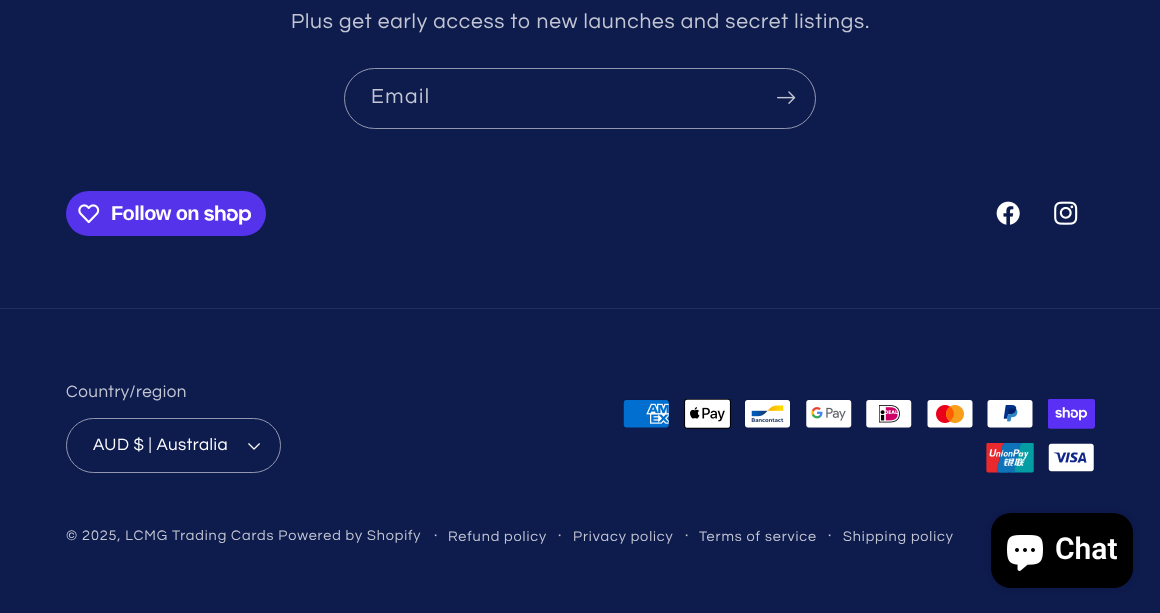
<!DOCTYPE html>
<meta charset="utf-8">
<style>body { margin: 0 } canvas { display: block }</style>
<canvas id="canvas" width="1160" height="613"></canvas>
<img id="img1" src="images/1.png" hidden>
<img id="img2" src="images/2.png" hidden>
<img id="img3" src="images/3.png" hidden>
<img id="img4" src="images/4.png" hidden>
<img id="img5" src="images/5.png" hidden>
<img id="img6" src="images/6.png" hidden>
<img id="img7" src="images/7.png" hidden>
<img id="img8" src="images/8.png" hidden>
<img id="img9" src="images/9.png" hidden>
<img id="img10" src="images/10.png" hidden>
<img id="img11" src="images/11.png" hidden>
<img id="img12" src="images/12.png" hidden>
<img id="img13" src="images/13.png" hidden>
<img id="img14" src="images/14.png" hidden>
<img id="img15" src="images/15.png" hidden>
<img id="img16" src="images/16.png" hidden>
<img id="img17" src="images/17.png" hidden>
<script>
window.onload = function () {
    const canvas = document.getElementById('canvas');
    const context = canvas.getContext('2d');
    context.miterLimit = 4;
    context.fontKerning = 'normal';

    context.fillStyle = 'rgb(14, 27, 77)';
    context.fillRect(0, 0, 1160, 613);
    context.beginPath();
    context.roundRect(344.5, 68.5, 471, 60, 30);
    context.strokeStyle = 'rgb(147, 152, 175)';
    context.stroke();
    context.drawImage(document.getElementById('img1'), 777, 91, 19, 13);
    context.fillStyle = 'rgb(84, 51, 235)';
    context.beginPath();
    context.roundRect(66, 191, 200, 45, 22.5);
    context.fill();
    context.drawImage(document.getElementById('img2'), 78, 204, 22, 20);
    context.drawImage(document.getElementById('img3'), 204, 205, 47, 20);
    context.drawImage(document.getElementById('img4'), 996, 201, 24, 24);
    context.drawImage(document.getElementById('img5'), 1054, 201, 24, 24);
    context.fillStyle = 'rgb(33, 45, 91)';
    context.fillRect(0, 308, 1160, 1);
    context.drawImage(document.getElementById('img6'), 248, 443, 12, 7);
    context.beginPath();
    context.roundRect(66.5, 418.5, 214, 54, 27);
    context.stroke();
    context.drawImage(document.getElementById('img7'), 623, 399, 47, 29);
    context.drawImage(document.getElementById('img8'), 684, 399, 47, 30);
    context.drawImage(document.getElementById('img9'), 744, 399, 47, 29);
    context.drawImage(document.getElementById('img10'), 805, 399, 47, 29);
    context.drawImage(document.getElementById('img11'), 865, 399, 47, 29);
    context.drawImage(document.getElementById('img12'), 927, 399, 46, 29);
    context.drawImage(document.getElementById('img13'), 987, 399, 46, 29);
    context.drawImage(document.getElementById('img14'), 1048, 399, 47, 30);
    context.drawImage(document.getElementById('img15'), 986, 443, 48, 30);
    context.drawImage(document.getElementById('img16'), 1048, 443, 47, 29);
    context.fillStyle = 'rgba(0, 0, 0, 0.15)';
    context.filter = 'blur(3px)';
    context.beginPath();
    context.roundRect(991, 513, 142, 75, 20);
    context.fill();
    context.filter = 'none';
    context.fillStyle = 'rgb(0, 0, 0)';
    context.beginPath();
    context.roundRect(991, 513, 142, 75, 20);
    context.fill();
    context.drawImage(document.getElementById('img17'), 1007, 535, 36, 36);
    context.letterSpacing = '0.8px';
    context.font = '21px Questrial';
    context.fillStyle = 'rgb(195, 198, 211)';
    context.fillText('Plus get early access to new launches and secret listings.', 291, 28);
    context.letterSpacing = '1.5px';
    context.fillText('Email', 371, 103);
    context.letterSpacing = '-0.6px';
    context.font = 'bold 20px Liberation Sans';
    context.fillStyle = 'rgb(255, 255, 255)';
    context.fillText('Follow on', 111, 220);
    context.letterSpacing = '0.5px';
    context.font = '17px Questrial';
    context.fillStyle = 'rgb(195, 198, 211)';
    context.fillText('Country/region', 66, 397);
    context.fillStyle = 'rgb(255, 255, 255)';
    context.fillText('AUD $ | Australia', 93, 450);
    context.letterSpacing = '0.9px';
    context.font = '14.4px Questrial';
    context.fillStyle = 'rgb(195, 198, 211)';
    context.fillText('© 2025, LCMG Trading Cards Powered by Shopify', 66, 540);
    context.font = '16px Questrial';
    context.fillText('·', 434, 540);
    context.font = '14.4px Questrial';
    context.fillText('Refund policy', 448, 541);
    context.font = '16px Questrial';
    context.fillText('·', 558, 540);
    context.font = '14.4px Questrial';
    context.fillText('Privacy policy', 573, 541);
    context.font = '16px Questrial';
    context.fillText('·', 685, 540);
    context.font = '14.4px Questrial';
    context.fillText('Terms of service', 699, 541);
    context.font = '16px Questrial';
    context.fillText('·', 828, 540);
    context.font = '14.4px Questrial';
    context.fillText('Shipping policy', 843, 541);
    context.letterSpacing = '0px';
    context.font = '600 30px Roboto';
    context.fillStyle = 'rgb(255, 255, 255)';
    context.fillText('Chat', 1055, 559);
};
</script>
